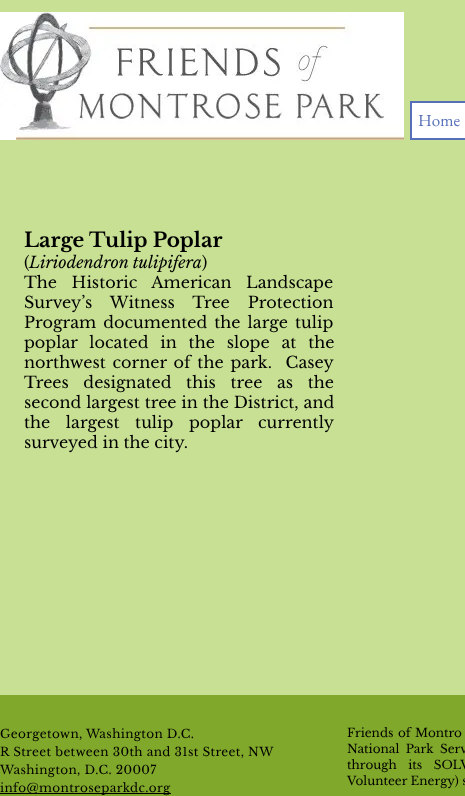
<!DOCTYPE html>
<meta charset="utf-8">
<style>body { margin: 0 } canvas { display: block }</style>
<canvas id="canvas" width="465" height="796"></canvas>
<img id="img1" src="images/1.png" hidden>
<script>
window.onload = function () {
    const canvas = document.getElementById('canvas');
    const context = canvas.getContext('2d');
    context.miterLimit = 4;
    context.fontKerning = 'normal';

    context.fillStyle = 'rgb(200, 224, 148)';
    context.fillRect(0, 0, 465, 796);
    context.drawImage(document.getElementById('img1'), 0, 12, 404, 128);
    context.fillStyle = 'rgb(255, 255, 255)';
    context.beginPath();
    context.rect(411, 102, 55, 37);
    context.fill();
    context.strokeStyle = 'rgb(86, 111, 184)';
    context.lineWidth = 2;
    context.stroke();
    context.fillStyle = 'rgb(128, 168, 42)';
    context.fillRect(0, 695, 465, 101);
    context.fillStyle = 'rgb(0, 0, 0)';
    context.fillRect(0, 793, 171, 1);
    context.font = '17px EB Garamond';
    context.fillStyle = 'rgb(86, 111, 184)';
    context.fillText('Home', 418, 126);
    context.font = 'bold 20px Libre Baskerville';
    context.fillStyle = 'rgb(0, 0, 0)';
    context.fillText('Large Tulip Poplar', 24, 247);
    context.font = '16px Libre Baskerville';
    context.fillText('(', 24, 268);
    context.font = 'italic 16px Libre Baskerville';
    context.fillText('Liriodendron tulipifera', 29, 268);
    context.font = '16px Libre Baskerville';
    context.fillText(')', 202, 268);
    context.wordSpacing = '10px';
    context.fillText('The Historic American Landscape', 24, 288);
    context.wordSpacing = '13.5px';
    context.fillText('Survey’s Witness Tree Protection', 24, 308);
    context.wordSpacing = '2.5px';
    context.fillText('Program documented the large tulip', 24, 328);
    context.wordSpacing = '7.25px';
    context.fillText('poplar located in the slope at the', 24, 348);
    context.wordSpacing = '2.25px';
    context.fillText('northwest corner of the park.  Casey', 24, 368);
    context.wordSpacing = '10px';
    context.fillText('Trees designated this tree as the', 24, 388);
    context.wordSpacing = '0.25px';
    context.fillText('second largest tree in the District, and', 24, 408);
    context.wordSpacing = '11px';
    context.fillText('the largest tulip poplar currently', 24, 428);
    context.wordSpacing = '0px';
    context.fillText('surveyed in the city.', 24, 448);
    context.letterSpacing = '0.35px';
    context.font = '12px Libre Baskerville';
    context.fillText('Georgetown, Washington D.C.', 0, 738);
    context.fillText('R Street between 30th and 31st Street, NW', 0, 756);
    context.fillText('Washington, D.C. 20007', 0, 774);
    context.fillText('info@montroseparkdc.org', 0, 792);
    context.letterSpacing = '0px';
    context.wordSpacing = '1px';
    context.fillText('Friends of Montro', 347, 737);
    context.wordSpacing = '3px';
    context.fillText('National Park Serv', 347, 753);
    context.wordSpacing = '8px';
    context.fillText('through its SOLV', 347, 769);
    context.wordSpacing = '0px';
    context.fillText('Volunteer Energy) s', 347, 785);
};
</script>
